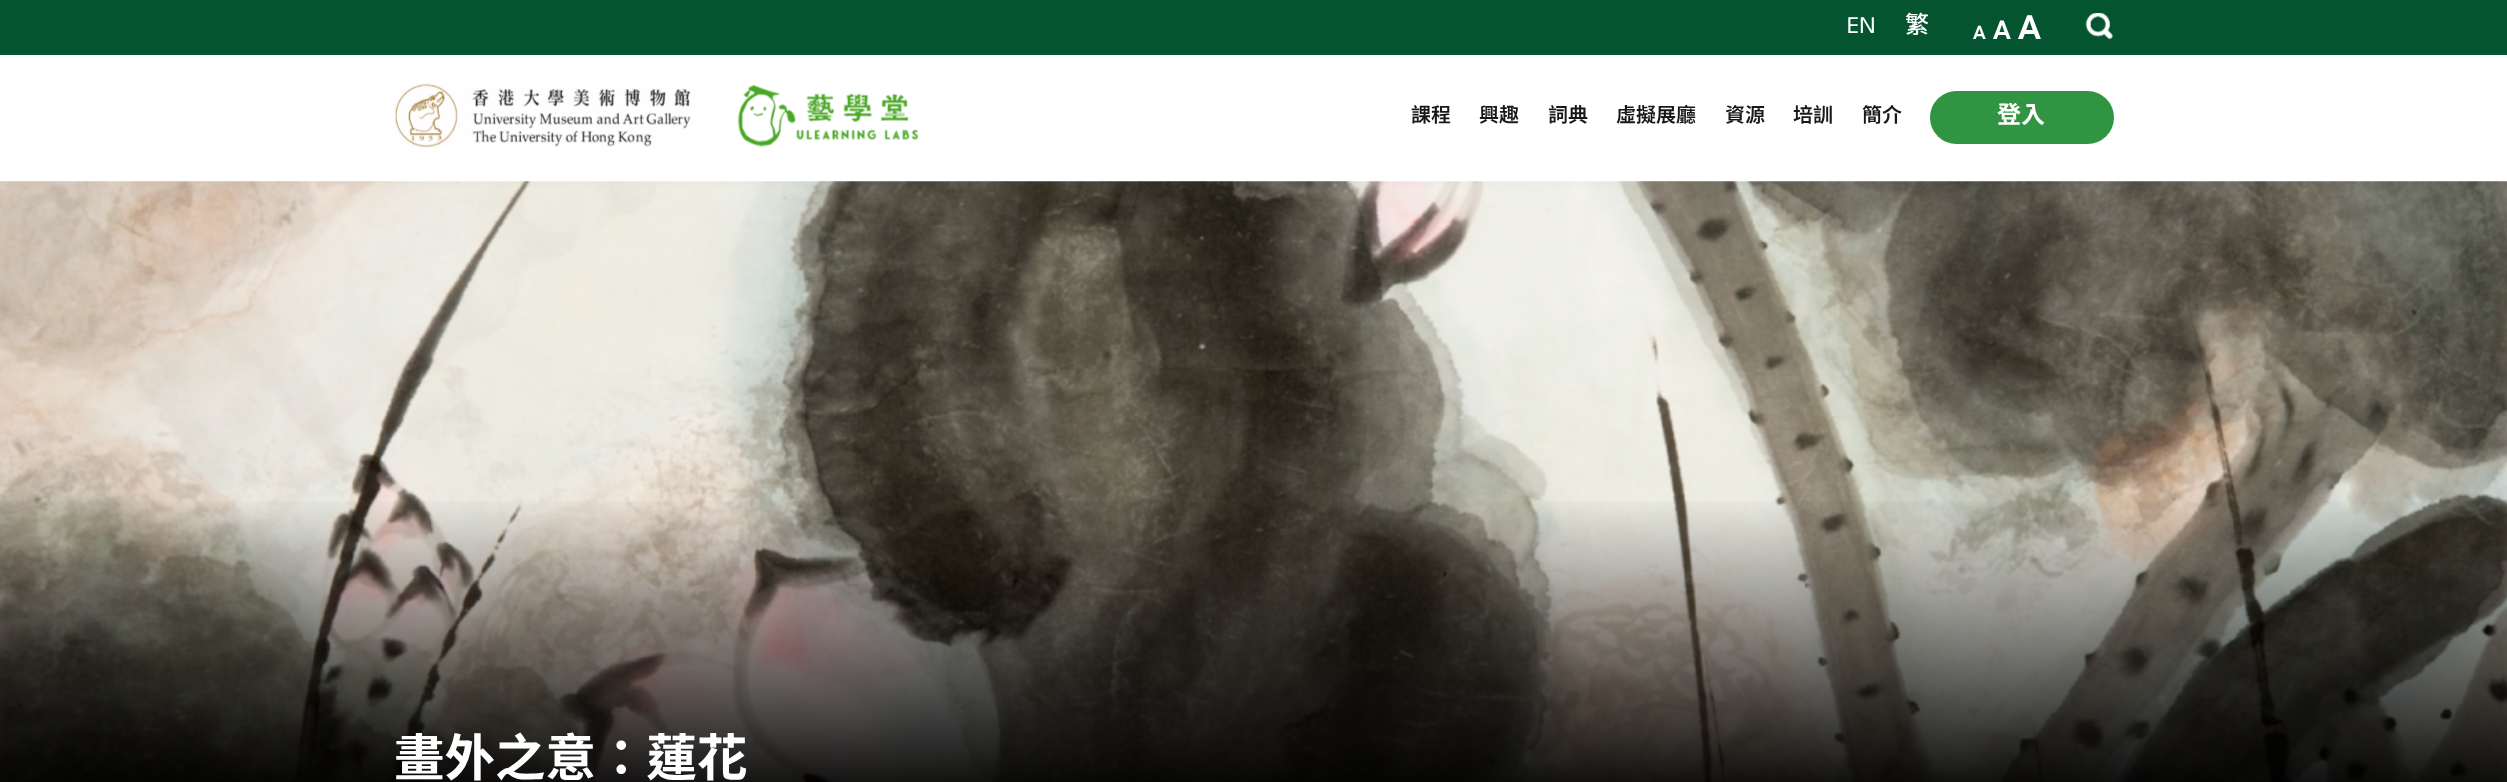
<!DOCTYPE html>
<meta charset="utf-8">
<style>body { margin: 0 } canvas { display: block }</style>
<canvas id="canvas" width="2507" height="782"></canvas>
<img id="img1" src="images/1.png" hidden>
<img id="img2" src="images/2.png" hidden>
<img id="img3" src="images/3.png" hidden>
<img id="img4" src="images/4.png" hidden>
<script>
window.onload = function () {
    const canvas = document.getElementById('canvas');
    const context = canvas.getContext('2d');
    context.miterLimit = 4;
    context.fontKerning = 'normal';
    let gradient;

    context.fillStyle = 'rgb(255, 255, 255)';
    context.fillRect(0, 0, 2507, 782);
    context.fillStyle = 'rgb(4, 85, 47)';
    context.fillRect(0, 0, 2507, 55);
    context.drawImage(document.getElementById('img1'), 2085, 13, 28, 27);
    context.drawImage(document.getElementById('img2'), 394, 83, 297, 65);
    context.drawImage(document.getElementById('img3'), 737, 84, 182, 63);
    context.fillStyle = 'rgb(49, 148, 66)';
    context.beginPath();
    context.roundRect(1930, 91, 184, 53, 26.5);
    context.fill();
    context.drawImage(document.getElementById('img4'), 0, 181, 2507, 601);
    gradient = context.createLinearGradient(1254, 181, 1254, 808);
    gradient.addColorStop(0, 'rgba(0, 0, 0, 0)');
    gradient.addColorStop(0.5, 'rgba(0, 0, 0, 0)');
    gradient.addColorStop(1, 'rgb(0, 0, 0)');
    context.fillStyle = gradient;
    context.fillRect(0, 501, 2507, 281);
    context.font = '24px League Spartan';
    context.fillStyle = 'rgb(255, 255, 255)';
    context.fillText('EN', 1847, 33);
    context.font = '500 24px Noto Sans HK';
    context.fillText('繁', 1905, 33);
    context.font = '600 20px League Spartan';
    context.fillText('A', 1973, 39);
    context.font = '600 28px League Spartan';
    context.fillText('A', 1993, 39);
    context.font = '600 36px League Spartan';
    context.fillText('A', 2018, 39);
    context.font = '600 20px Noto Sans HK';
    context.fillStyle = 'rgb(23, 25, 22)';
    context.fillText('課程', 1411, 122);
    context.fillText('興趣', 1479, 122);
    context.fillText('詞典', 1548, 122);
    context.fillText('虛擬展廳', 1616, 122);
    context.fillText('資源', 1725, 122);
    context.fillText('培訓', 1793, 122);
    context.fillText('簡介', 1862, 122);
    context.font = 'bold 24px Noto Sans HK';
    context.fillStyle = 'rgb(255, 255, 255)';
    context.fillText('登入', 1997, 123);
    context.font = 'bold 50.5px Noto Sans HK';
    context.fillText('畫外之意：蓮花', 394, 776);
};
</script>
